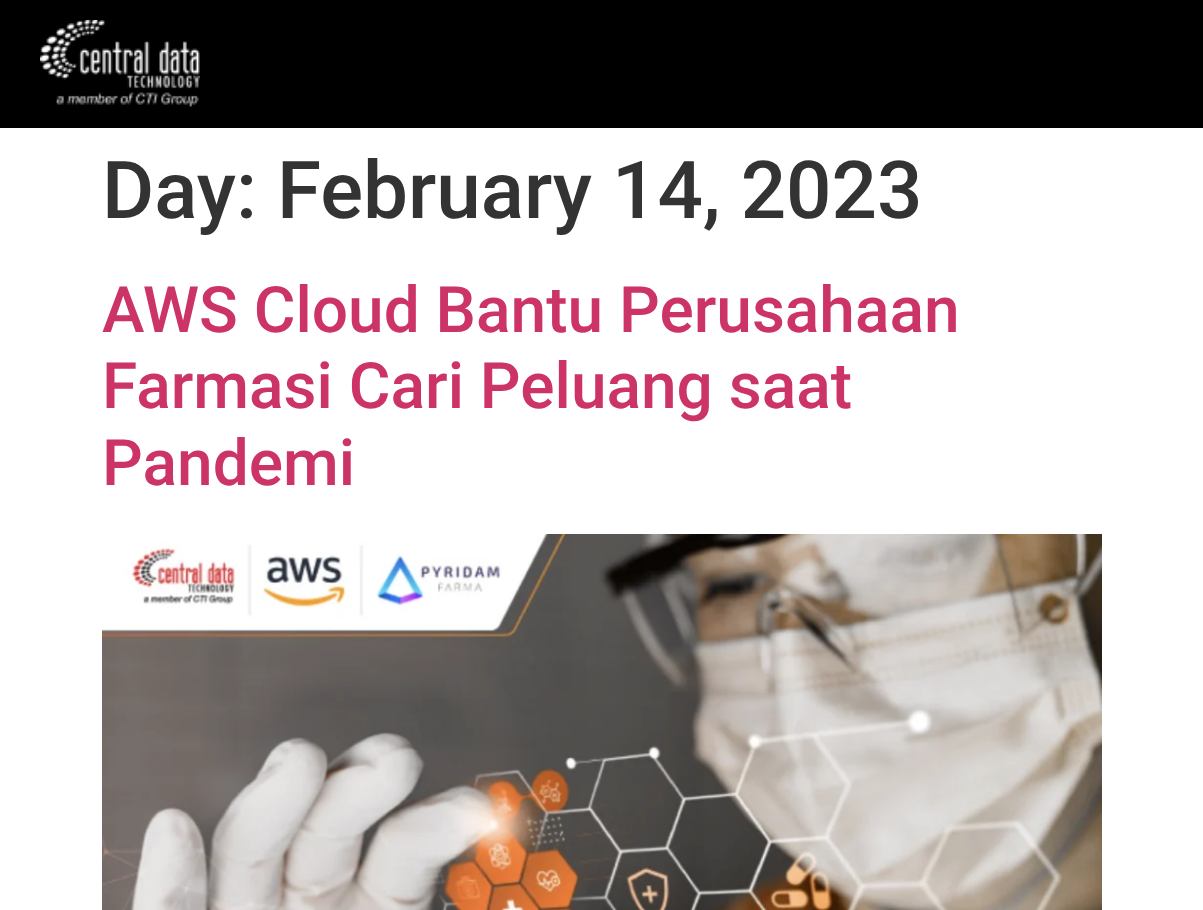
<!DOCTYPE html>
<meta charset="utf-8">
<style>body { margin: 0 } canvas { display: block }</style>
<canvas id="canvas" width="1203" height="910"></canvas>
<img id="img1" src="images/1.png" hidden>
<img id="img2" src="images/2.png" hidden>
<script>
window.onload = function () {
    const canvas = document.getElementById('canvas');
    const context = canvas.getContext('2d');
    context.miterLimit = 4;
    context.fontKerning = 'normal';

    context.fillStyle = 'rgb(255, 255, 255)';
    context.fillRect(0, 0, 1203, 910);
    context.fillStyle = 'rgb(0, 0, 0)';
    context.fillRect(0, 0, 1203, 128);
    context.drawImage(document.getElementById('img1'), 40, 20, 160, 87);
    context.drawImage(document.getElementById('img2'), 102, 534, 1000, 376);
    context.font = '500 80px Roboto';
    context.fillStyle = 'rgb(51, 51, 51)';
    context.fillText('Day: February 14, 2023', 102, 218);
    context.font = '500 64px Roboto';
    context.fillStyle = 'rgb(204, 51, 102)';
    context.fillText('AWS Cloud Bantu Perusahaan', 102, 332);
    context.fillText('Farmasi Cari Peluang saat', 102, 408);
    context.fillText('Pandemi', 102, 485);
};
</script>
